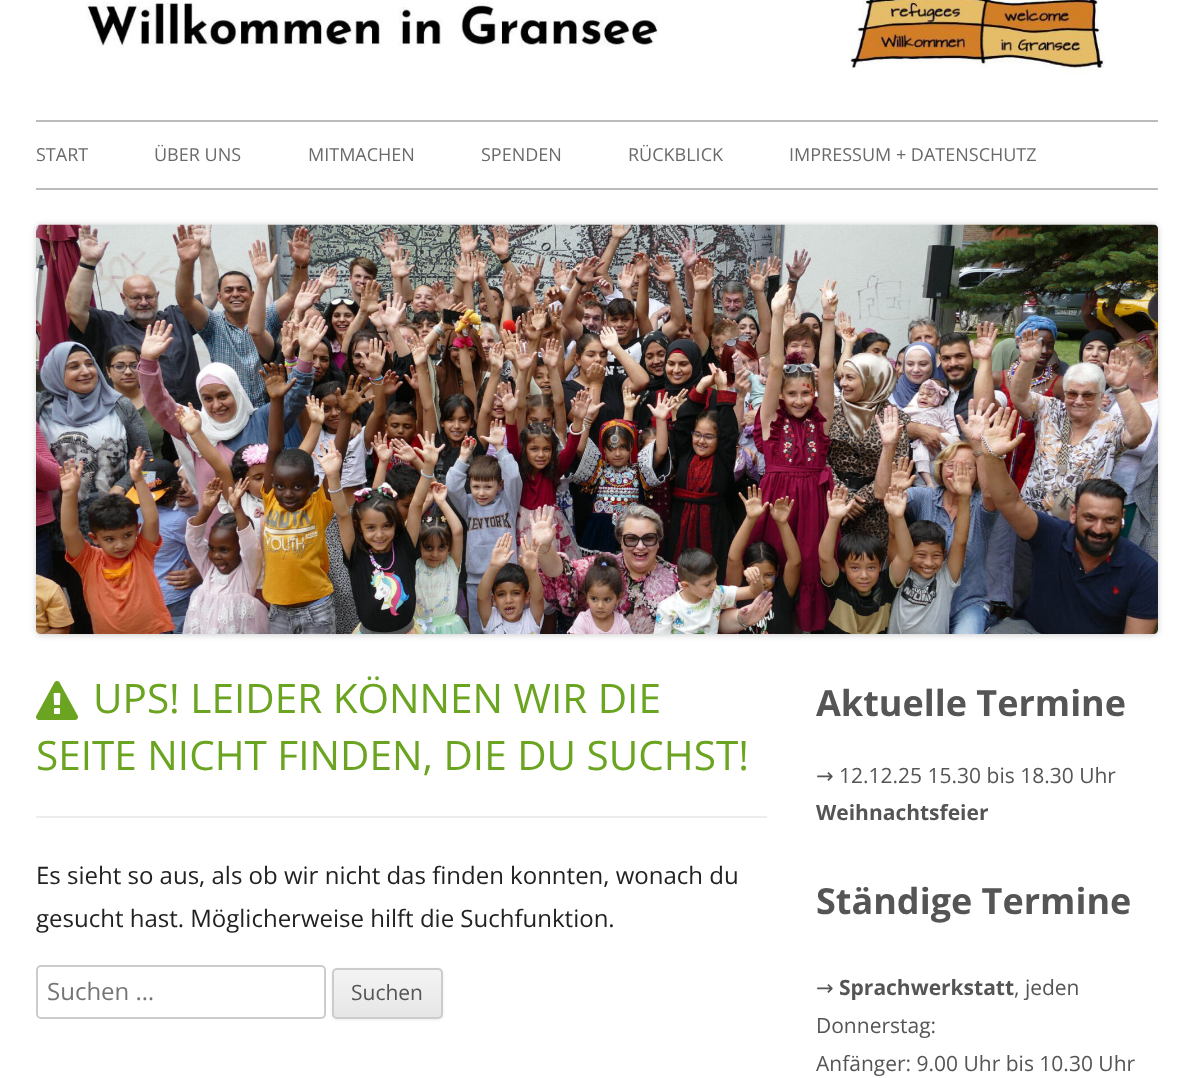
<!DOCTYPE html>
<meta charset="utf-8">
<style>body { margin: 0 } canvas { display: block }</style>
<canvas id="canvas" width="1193" height="1078"></canvas>
<img id="img1" src="images/1.png" hidden>
<img id="img2" src="images/2.png" hidden>
<img id="img3" src="images/3.png" hidden>
<script>
window.onload = function () {
    const canvas = document.getElementById('canvas');
    const context = canvas.getContext('2d');
    context.miterLimit = 4;
    context.fontKerning = 'normal';
    let gradient;

    context.fillStyle = 'rgb(255, 255, 255)';
    context.fillRect(0, 0, 1193, 1078);
    context.drawImage(document.getElementById('img1'), 86, 0, 1019, 75);
    context.fillStyle = 'rgb(187, 187, 187)';
    context.fillRect(36, 120, 1122, 2);
    context.fillRect(36, 188, 1122, 2);
    context.fillStyle = 'rgba(0, 0, 0, 0.2)';
    context.filter = 'blur(3px)';
    context.beginPath();
    context.roundRect(36, 225, 1122, 410, 5);
    context.fill();
    context.filter = 'none';
    context.drawImage(document.getElementById('img2'), 36, 224, 1122, 410);
    context.fillStyle = 'rgb(237, 237, 237)';
    context.fillRect(36, 816, 731, 2);
    context.drawImage(document.getElementById('img3'), 36, 681, 42, 39);
    context.beginPath();
    context.roundRect(37, 966, 288, 52, 4);
    context.strokeStyle = 'rgb(204, 204, 204)';
    context.lineWidth = 2;
    context.stroke();
    context.fillStyle = 'rgba(64, 64, 64, 0.1)';
    context.filter = 'blur(1.5px)';
    context.beginPath();
    context.roundRect(332, 969, 111, 51, 5);
    context.fill();
    context.filter = 'none';
    context.save();
    context.beginPath();
    context.roundRect(332, 968, 111, 51, 5);
    context.clip();
    gradient = context.createLinearGradient(387, 969, 387, 1017);
    gradient.addColorStop(0, 'rgb(244, 244, 244)');
    gradient.addColorStop(1, 'rgb(230, 230, 230)');
    context.fillStyle = gradient;
    context.fillRect(332, 969, 111, 48);
    context.restore();
    context.beginPath();
    context.roundRect(333, 969, 109, 49, 4);
    context.stroke();
    context.font = '18px Open Sans';
    context.fillStyle = 'rgb(106, 106, 106)';
    context.fillText('START', 36, 161);
    context.fillText('ÜBER UNS', 154, 161);
    context.fillText('MITMACHEN', 308, 161);
    context.fillText('SPENDEN', 481, 161);
    context.fillText('RÜCKBLICK', 628, 161);
    context.fillText('IMPRESSUM + DATENSCHUTZ', 789, 161);
    context.font = '40.5px Open Sans';
    context.fillStyle = 'rgb(107, 164, 32)';
    context.fillText('UPS! LEIDER KÖNNEN WIR DIE', 93, 713);
    context.fillText('SEITE NICHT FINDEN, DIE DU SUCHST!', 36, 770);
    context.font = '24px Open Sans';
    context.fillStyle = 'rgb(34, 34, 34)';
    context.fillText('Es sieht so aus, als ob wir nicht das finden konnten, wonach du', 36, 884);
    context.fillText('gesucht hast. Möglicherweise hilft die Suchfunktion.', 36, 927);
    context.fillStyle = 'rgb(117, 117, 117)';
    context.fillText('Suchen …', 47, 1000);
    context.font = '21px Open Sans';
    context.fillStyle = 'rgb(85, 85, 85)';
    context.fillText('Suchen', 351, 1000);
    context.font = 'bold 36px Open Sans';
    context.fillText('Aktuelle Termine', 816, 716);
    context.font = '21px DejaVu Sans';
    context.fillText('→', 816, 783);
    context.font = '21px Open Sans';
    context.fillText('12.12.25 15.30 bis 18.30 Uhr', 839, 783);
    context.font = 'bold 21px Open Sans';
    context.fillText('Weihnachtsfeier', 816, 820);
    context.font = 'bold 36px Open Sans';
    context.fillText('Ständige Termine', 816, 914);
    context.font = '21px DejaVu Sans';
    context.fillText('→', 816, 995);
    context.font = 'bold 21px Open Sans';
    context.fillText('Sprachwerkstatt', 839, 995);
    context.font = '21px Open Sans';
    context.fillText(', jeden', 1014, 995);
    context.fillText('Donnerstag:', 816, 1033);
    context.fillText('Anfänger: 9.00 Uhr bis 10.30 Uhr', 816, 1071);
};
</script>
